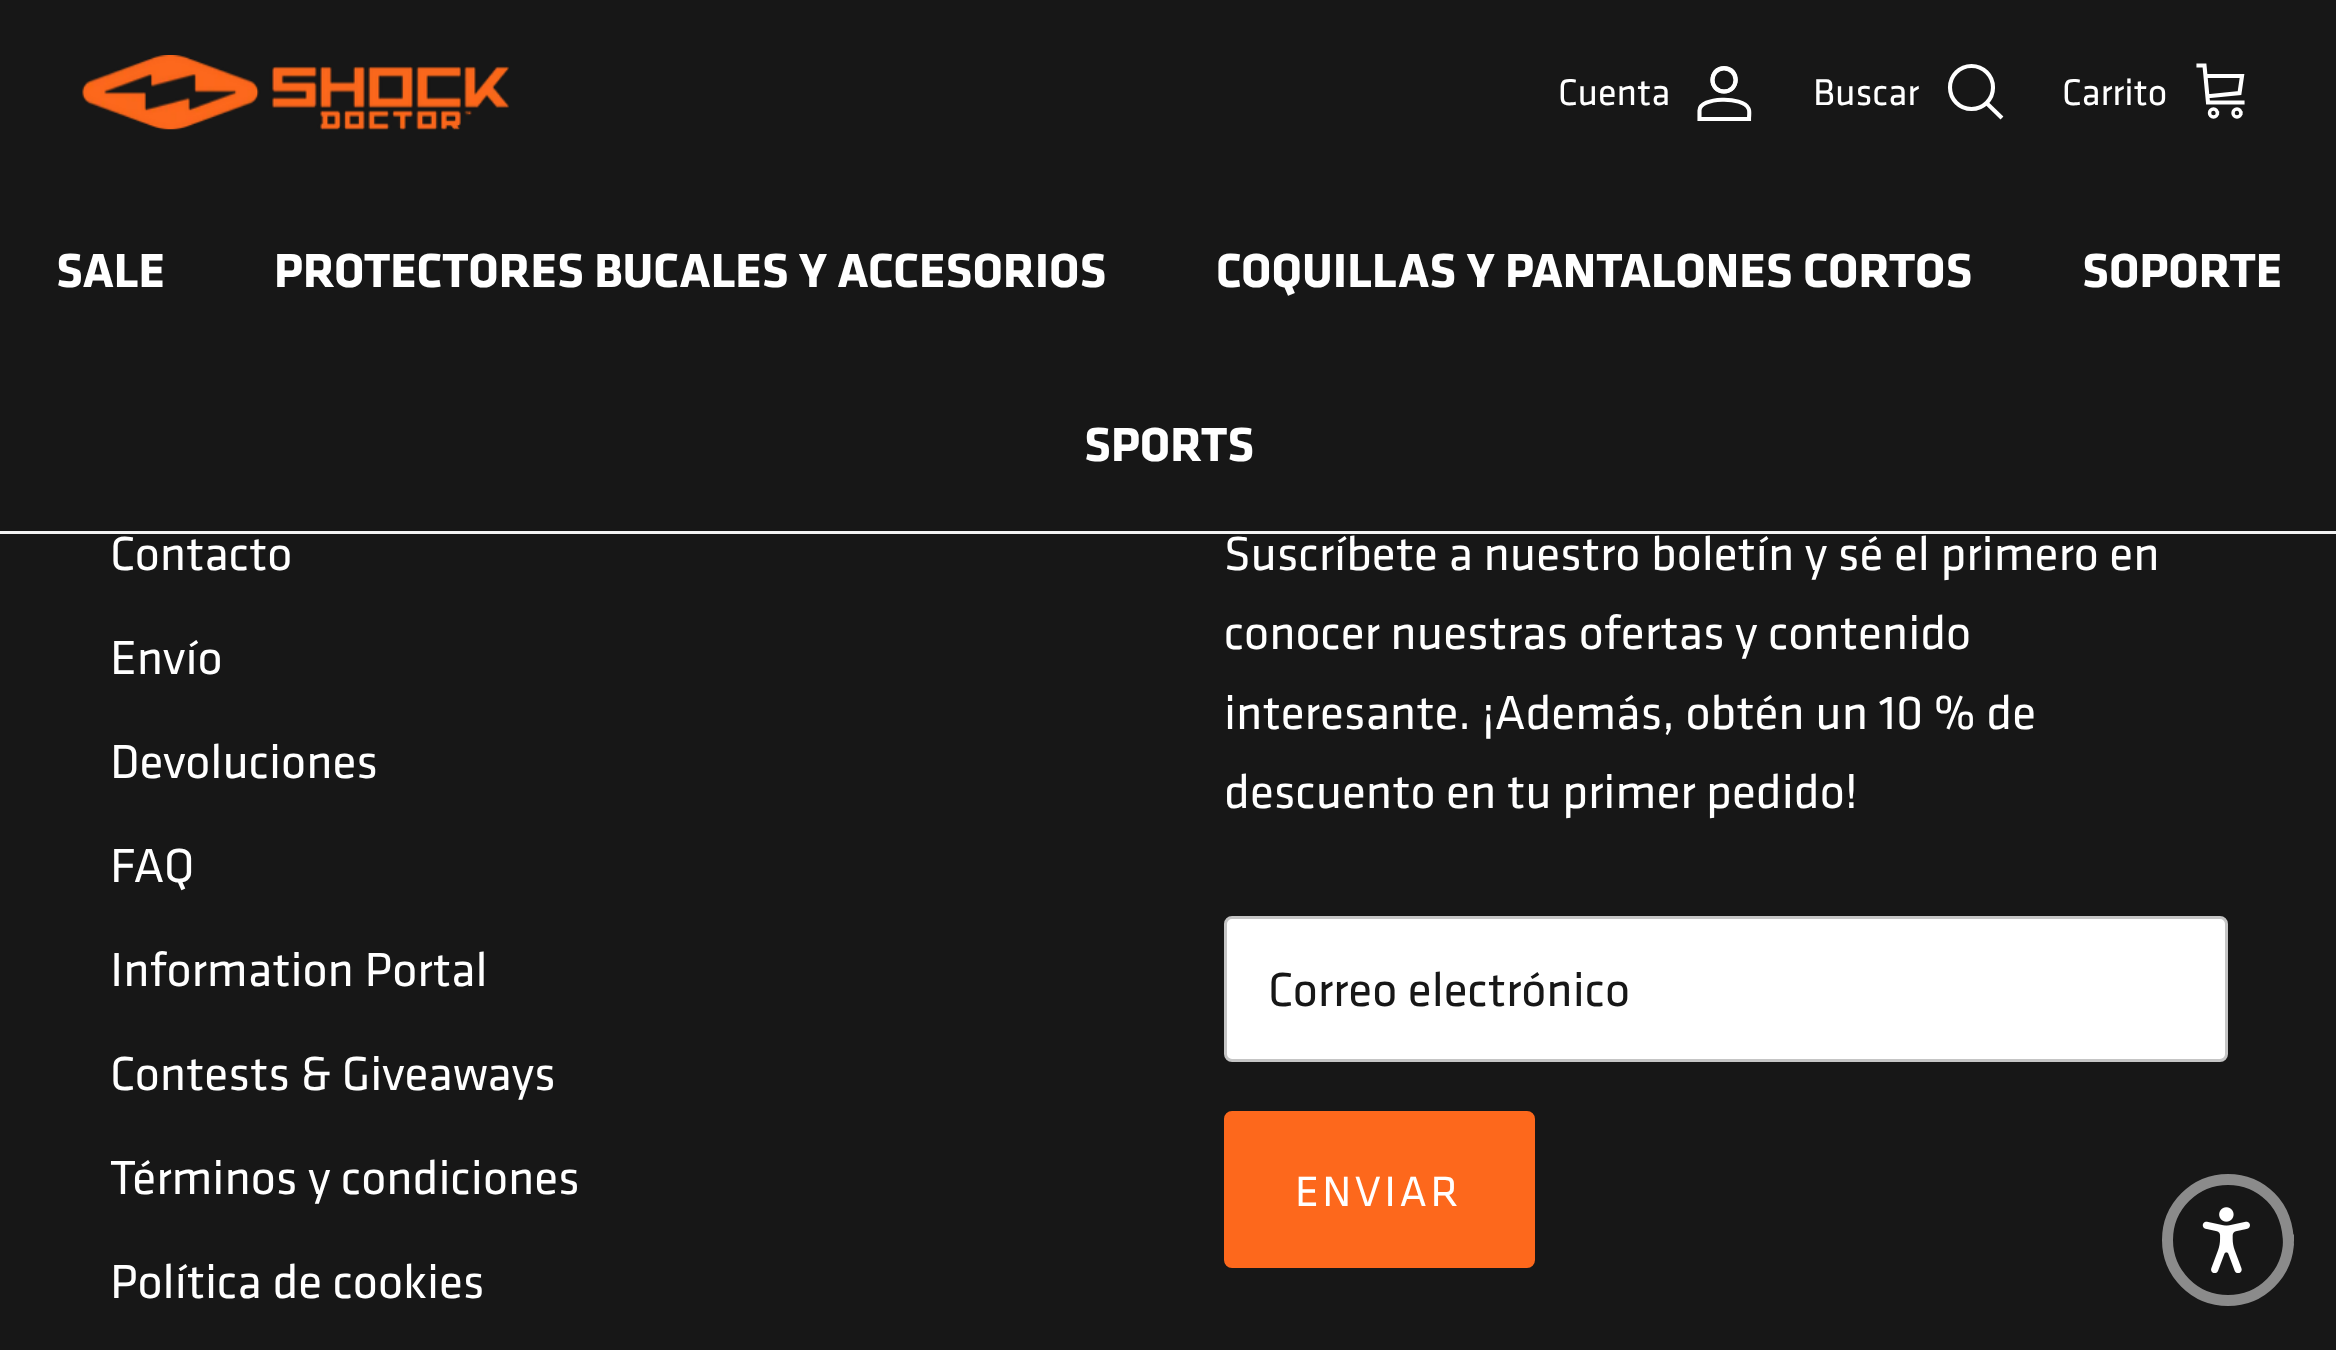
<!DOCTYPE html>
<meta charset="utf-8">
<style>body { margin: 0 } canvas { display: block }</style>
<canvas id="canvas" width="2336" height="1350"></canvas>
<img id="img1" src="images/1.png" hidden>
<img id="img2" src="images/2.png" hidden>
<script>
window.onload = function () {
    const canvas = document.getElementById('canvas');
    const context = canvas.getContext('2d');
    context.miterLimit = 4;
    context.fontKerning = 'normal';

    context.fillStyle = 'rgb(23, 23, 23)';
    context.fillRect(0, 0, 2336, 1350);
    context.drawImage(document.getElementById('img1'), 82, 55, 427, 75);
    context.fillStyle = 'rgb(255, 255, 255)';
    context.beginPath();
    context.moveTo(1724, 66);
    context.bezierCurveTo(1742.5, 66, 1742.5, 93.5, 1724, 93.5);
    context.bezierCurveTo(1706, 93.5, 1706, 66, 1724, 66);
    context.closePath();
    context.moveTo(1724, 70);
    context.bezierCurveTo(1711.5, 70, 1711, 89, 1724, 89.5);
    context.bezierCurveTo(1737, 90, 1737.5, 70, 1724, 70);
    context.closePath();
    context.fill('evenodd');
    context.beginPath();
    context.arc(1724, 80, 11.5, 0, 2 * Math.PI);
    context.strokeStyle = 'rgb(255, 255, 255)';
    context.lineWidth = 4.1;
    context.stroke();
    context.beginPath();
    context.moveTo(1699.5, 110.5);
    context.bezierCurveTo(1699.5, 97, 1743, 96, 1748.5, 108.5);
    context.bezierCurveTo(1750, 111, 1749, 115.5, 1749, 119);
    context.lineTo(1699.5, 119);
    context.closePath();
    context.stroke();
    context.beginPath();
    context.arc(1971.5, 87.5, 21.5, 0, 2 * Math.PI);
    context.stroke();
    context.beginPath();
    context.moveTo(1988, 104.5);
    context.lineTo(2000.5, 116.5);
    context.lineCap = 'square';
    context.stroke();
    context.beginPath();
    context.moveTo(2198.5, 65.5);
    context.lineTo(2204.5, 65.5);
    context.lineTo(2208, 102.5);
    context.lineTo(2242.5, 102.5);
    context.moveTo(2206, 76);
    context.lineTo(2242, 76);
    context.lineTo(2239.5, 93);
    context.lineTo(2210, 96);
    context.stroke();
    context.beginPath();
    context.arc(2213.5, 113, 4, 0, 2 * Math.PI);
    context.lineWidth = 3.4;
    context.stroke();
    context.beginPath();
    context.arc(2237, 113, 4, 0, 2 * Math.PI);
    context.stroke();
    context.fillStyle = 'rgb(243, 243, 243)';
    context.fillRect(0, 531, 2336, 3);
    context.fillStyle = 'rgb(255, 255, 255)';
    context.beginPath();
    context.roundRect(1225.5, 917.5, 1001, 143, 6.5);
    context.fill();
    context.strokeStyle = 'rgb(197, 197, 197)';
    context.lineWidth = 3;
    context.stroke();
    context.fillStyle = 'rgb(253, 104, 28)';
    context.beginPath();
    context.roundRect(1225.5, 1112.5, 308, 154, 6.5);
    context.fill();
    context.strokeStyle = 'rgb(253, 104, 28)';
    context.stroke();
    context.beginPath();
    context.arc(2228, 1240, 60.5, 0, 2 * Math.PI);
    context.strokeStyle = 'rgb(139, 139, 139)';
    context.lineWidth = 11;
    context.stroke();
    context.drawImage(document.getElementById('img2'), 2202, 1207, 48, 66);
    context.font = '38.5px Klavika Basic';
    context.fillStyle = 'rgb(255, 255, 255)';
    context.fillText('Cuenta', 1558, 105);
    context.fillText('Buscar', 1813, 105);
    context.fillText('Carrito', 2062, 105);
    context.font = 'bold 49.5px Klavika Basic';
    context.fillText('SALE', 56, 287);
    context.fillText('PROTECTORES BUCALES Y ACCESORIOS', 274, 287);
    context.fillText('COQUILLAS Y PANTALONES CORTOS', 1216, 287);
    context.fillText('SOPORTE', 2082, 287);
    context.fillText('SPORTS', 1084, 461);
    context.font = '49.5px Klavika Basic';
    context.fillText('Contacto', 110, 570);
    context.fillText('Envío', 110, 674);
    context.fillText('Devoluciones', 110, 778);
    context.fillText('FAQ', 110, 882);
    context.fillText('Information Portal', 110, 986);
    context.fillText('Contests & Giveaways', 110, 1090);
    context.fillText('Términos y condiciones', 110, 1194);
    context.fillText('Política de cookies', 110, 1298);
    context.fillText('Suscríbete a nuestro boletín y sé el primero en', 1224, 570);
    context.fillText('conocer nuestras ofertas y contenido', 1224, 649);
    context.fillText('interesante. ¡Además, obtén un 10 % de', 1224, 729);
    context.fillText('descuento en tu primer pedido!', 1224, 808);
    context.fillStyle = 'rgb(23, 23, 23)';
    context.fillText('Correo electrónico', 1268, 1006);
    context.letterSpacing = '3.5px';
    context.font = '44px Klavika Basic';
    context.fillStyle = 'rgb(255, 255, 255)';
    context.fillText('ENVIAR', 1295, 1206);
};
</script>
